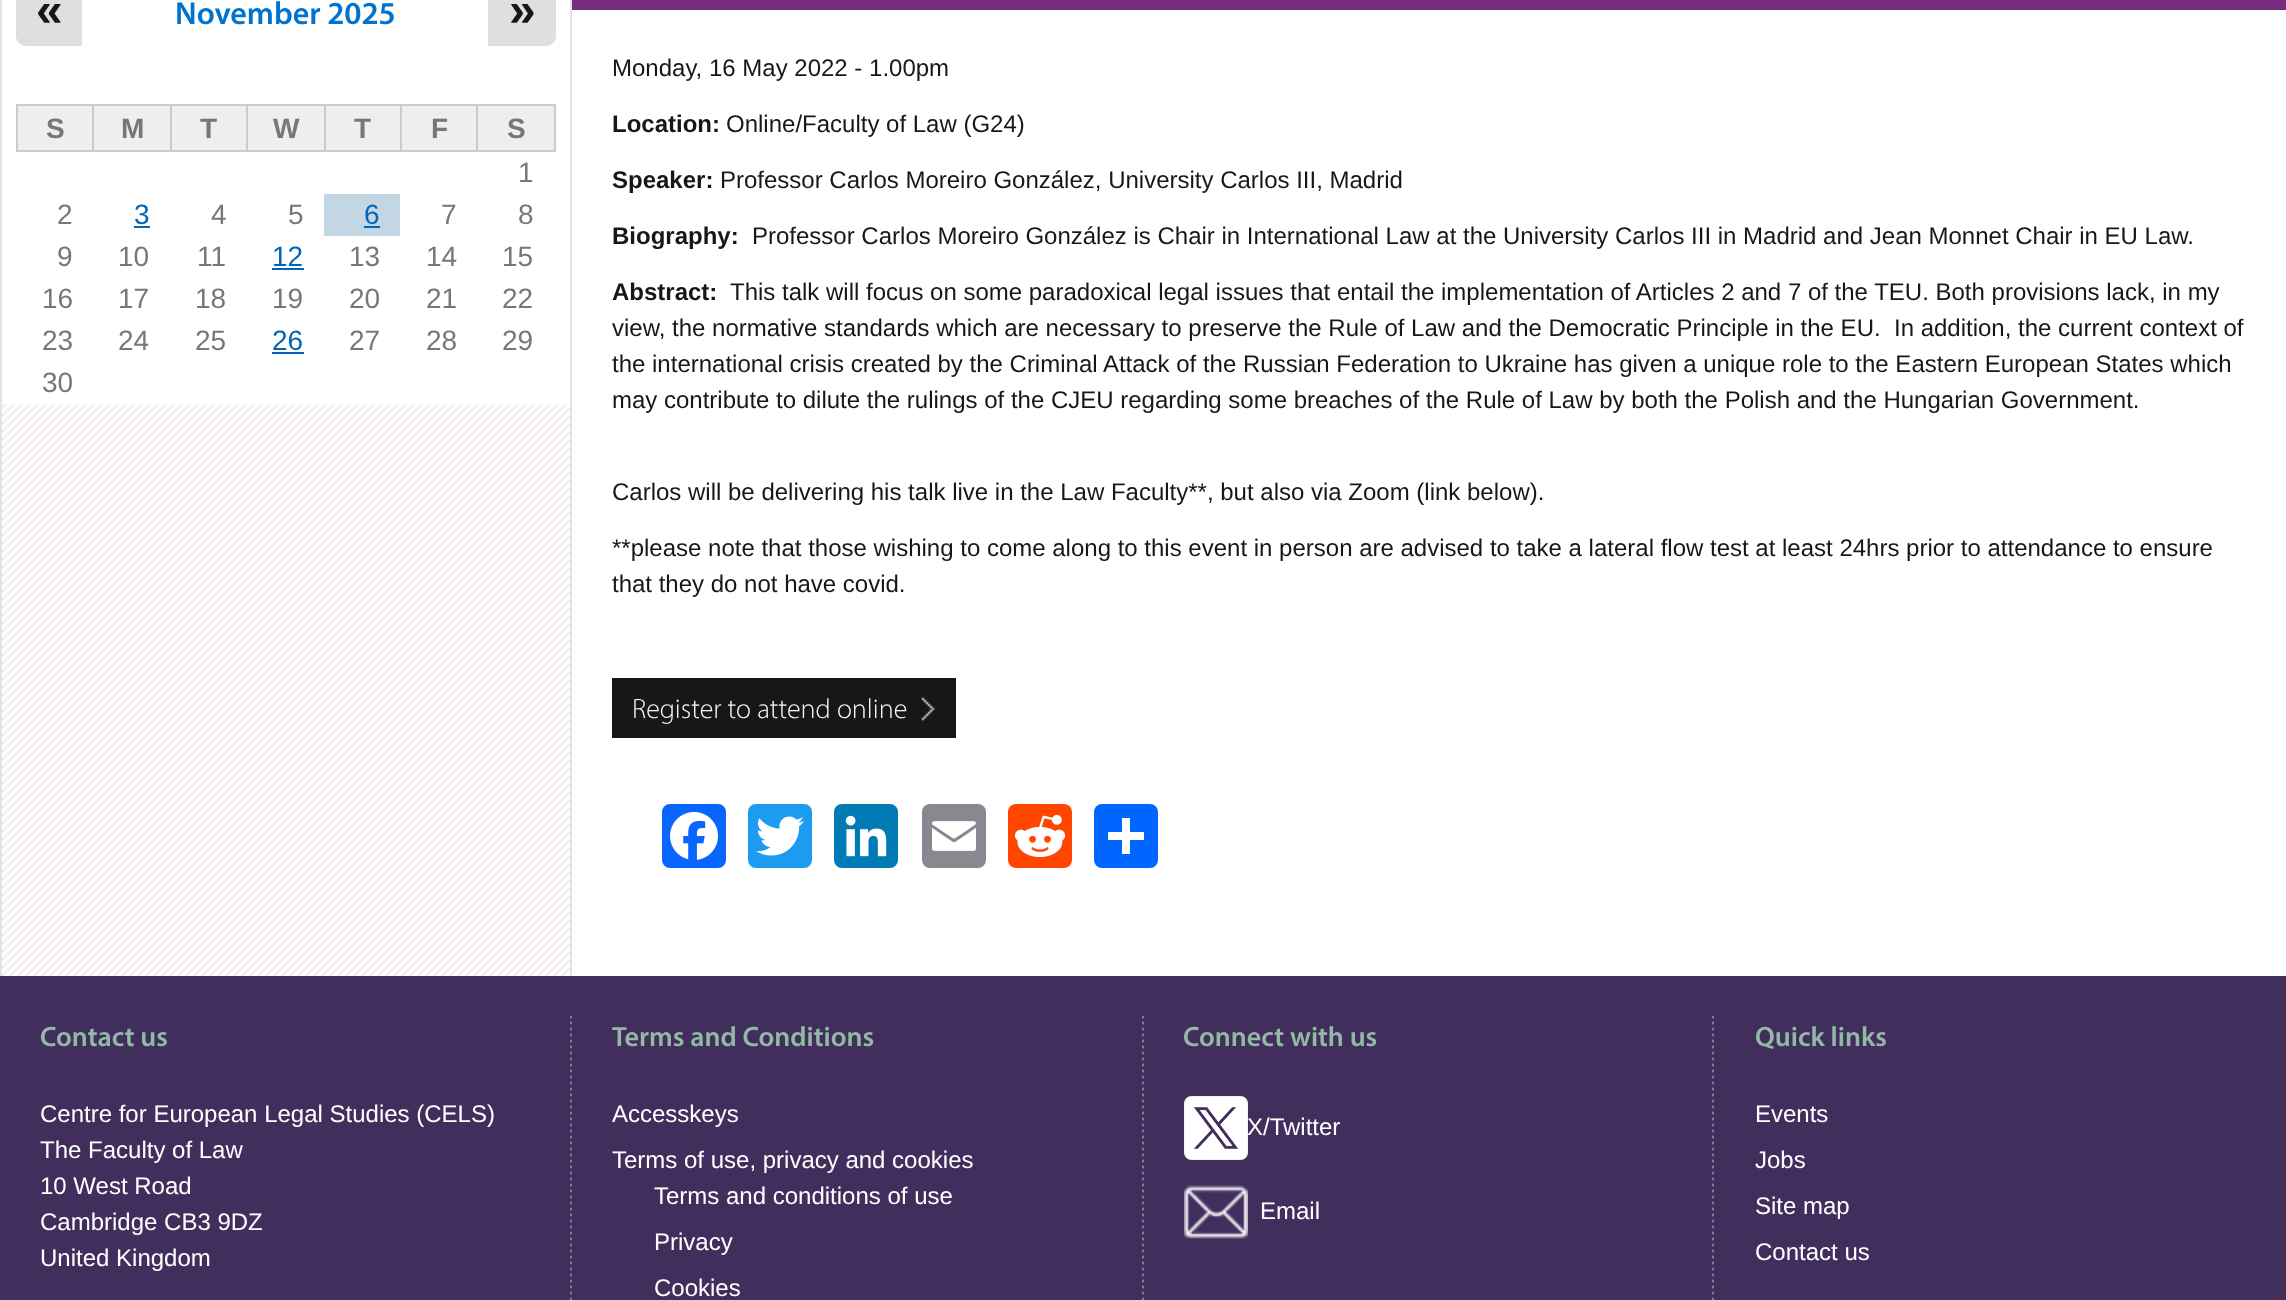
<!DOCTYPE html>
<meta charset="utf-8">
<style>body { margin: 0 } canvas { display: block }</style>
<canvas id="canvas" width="2286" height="1300"></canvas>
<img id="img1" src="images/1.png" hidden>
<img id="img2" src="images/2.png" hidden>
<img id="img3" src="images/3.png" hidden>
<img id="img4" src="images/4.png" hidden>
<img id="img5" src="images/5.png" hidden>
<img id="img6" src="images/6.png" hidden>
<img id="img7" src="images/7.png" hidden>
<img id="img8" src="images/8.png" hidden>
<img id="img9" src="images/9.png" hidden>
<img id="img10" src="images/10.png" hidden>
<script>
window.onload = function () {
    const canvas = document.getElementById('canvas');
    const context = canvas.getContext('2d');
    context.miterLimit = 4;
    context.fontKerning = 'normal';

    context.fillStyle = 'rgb(255, 255, 255)';
    context.fillRect(0, 0, 2286, 1300);
    context.fillStyle = 'rgb(120, 44, 126)';
    context.fillRect(572, 0, 1714, 10);
    context.drawImage(document.getElementById('img1'), 2, 404, 568, 572);
    context.fillStyle = 'rgb(228, 228, 228)';
    context.fillRect(570, 0, 2, 976);
    context.fillRect(0, 0, 2, 976);
    context.fillStyle = 'rgb(223, 223, 223)';
    context.beginPath();
    context.moveTo(26, -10);
    context.lineTo(82, -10);
    context.lineTo(82, 46);
    context.lineTo(26, 46);
    context.bezierCurveTo(20.5, 46, 16, 41.5, 16, 36);
    context.lineTo(16, 0);
    context.bezierCurveTo(16, -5.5, 20.5, -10, 26, -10);
    context.closePath();
    context.fill();
    context.beginPath();
    context.moveTo(488, -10);
    context.lineTo(546, -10);
    context.bezierCurveTo(551.5, -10, 556, -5.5, 556, 0);
    context.lineTo(556, 36);
    context.bezierCurveTo(556, 41.5, 551.5, 46, 546, 46);
    context.lineTo(488, 46);
    context.closePath();
    context.fill();
    context.fillStyle = 'rgb(238, 238, 238)';
    context.fillRect(18, 106, 74, 44);
    context.fillStyle = 'rgb(204, 204, 204)';
    context.fillRect(476, 104, 80, 2);
    context.fillRect(554, 104, 2, 48);
    context.fillRect(476, 150, 80, 2);
    context.fillRect(476, 104, 2, 48);
    context.fillRect(400, 104, 78, 2);
    context.fillRect(400, 150, 78, 2);
    context.fillRect(400, 104, 2, 48);
    context.fillRect(324, 104, 78, 2);
    context.fillRect(324, 150, 78, 2);
    context.fillRect(324, 104, 2, 48);
    context.fillRect(246, 104, 80, 2);
    context.fillRect(246, 150, 80, 2);
    context.fillRect(246, 104, 2, 48);
    context.fillRect(170, 104, 78, 2);
    context.fillRect(170, 150, 78, 2);
    context.fillRect(170, 104, 2, 48);
    context.fillRect(92, 104, 80, 2);
    context.fillRect(92, 150, 80, 2);
    context.fillRect(92, 104, 2, 48);
    context.fillRect(16, 104, 78, 2);
    context.fillRect(16, 150, 78, 2);
    context.fillRect(16, 104, 2, 48);
    context.fillStyle = 'rgb(238, 238, 238)';
    context.fillRect(94, 106, 76, 44);
    context.fillRect(172, 106, 74, 44);
    context.fillRect(248, 106, 76, 44);
    context.fillRect(326, 106, 74, 44);
    context.fillRect(402, 106, 74, 44);
    context.fillRect(478, 106, 76, 44);
    context.fillStyle = 'rgb(0, 101, 184)';
    context.fillRect(134, 226, 16, 2);
    context.fillStyle = 'rgb(195, 214, 228)';
    context.fillRect(324, 194, 76, 42);
    context.fillStyle = 'rgb(0, 101, 184)';
    context.fillRect(364, 226, 16, 2);
    context.fillRect(272, 268, 32, 2);
    context.fillRect(272, 352, 32, 2);
    context.fillStyle = 'rgb(23, 23, 23)';
    context.fillRect(612, 678, 344, 60);
    context.drawImage(document.getElementById('img2'), 921, 697, 14, 24);
    context.fillStyle = 'rgb(8, 102, 255)';
    context.beginPath();
    context.roundRect(662, 804, 64, 64, 8);
    context.fill();
    context.drawImage(document.getElementById('img3'), 670, 812, 48, 48);
    context.fillStyle = 'rgb(29, 155, 240)';
    context.beginPath();
    context.roundRect(748, 804, 64, 64, 8);
    context.fill();
    context.drawImage(document.getElementById('img4'), 756, 816, 48, 40);
    context.fillStyle = 'rgb(0, 123, 181)';
    context.beginPath();
    context.roundRect(834, 804, 64, 64, 8);
    context.fill();
    context.drawImage(document.getElementById('img5'), 845, 815, 42, 42);
    context.fillStyle = 'rgb(136, 137, 144)';
    context.beginPath();
    context.roundRect(922, 804, 64, 64, 8);
    context.fill();
    context.drawImage(document.getElementById('img6'), 932, 821, 44, 30);
    context.fillStyle = 'rgb(255, 69, 0)';
    context.beginPath();
    context.roundRect(1008, 804, 64, 64, 8);
    context.fill();
    context.drawImage(document.getElementById('img7'), 1014, 814, 52, 44);
    context.fillStyle = 'rgb(1, 102, 255)';
    context.beginPath();
    context.roundRect(1094, 804, 64, 64, 8);
    context.fill();
    context.fillStyle = 'rgb(255, 255, 255)';
    context.fillRect(1122, 818, 8, 36);
    context.fillRect(1108, 832, 36, 8);
    context.fillStyle = 'rgb(66, 46, 93)';
    context.fillRect(0, 976, 2286, 324);
    context.drawImage(document.getElementById('img8'), 570, 1016, 2, 284);
    context.drawImage(document.getElementById('img8'), 1142, 1016, 2, 284);
    context.drawImage(document.getElementById('img8'), 1712, 1016, 2, 284);
    context.drawImage(document.getElementById('img9'), 1184, 1096, 64, 64);
    context.drawImage(document.getElementById('img10'), 1184, 1185, 64, 54);
    context.font = '600 32px Myriad';
    context.fillStyle = 'rgb(0, 114, 207)';
    context.fillText('November 2025', 175, 24);
    context.font = 'bold 48px Liberation Sans';
    context.fillStyle = 'rgb(23, 23, 23)';
    context.fillText('«', 36, 26);
    context.fillText('»', 509, 26);
    context.font = 'bold 28px Liberation Sans';
    context.fillStyle = 'rgb(119, 119, 119)';
    context.fillText('S', 46, 138);
    context.fillText('M', 121, 138);
    context.fillText('T', 200, 138);
    context.fillText('W', 273, 138);
    context.fillText('T', 354, 138);
    context.fillText('F', 431, 138);
    context.fillText('S', 507, 138);
    context.font = '28px Liberation Sans';
    context.fillText('1', 518, 182);
    context.fillText('2', 57, 224);
    context.fillStyle = 'rgb(0, 101, 184)';
    context.fillText('3', 134, 224);
    context.fillStyle = 'rgb(119, 119, 119)';
    context.fillText('4', 211, 224);
    context.fillText('5', 288, 224);
    context.fillStyle = 'rgb(0, 101, 184)';
    context.fillText('6', 364, 224);
    context.fillStyle = 'rgb(119, 119, 119)';
    context.fillText('7', 441, 224);
    context.fillText('8', 518, 224);
    context.fillText('9', 57, 266);
    context.fillText('10', 118, 266);
    context.fillText('11', 197, 266);
    context.fillStyle = 'rgb(0, 101, 184)';
    context.fillText('12', 272, 266);
    context.fillStyle = 'rgb(119, 119, 119)';
    context.fillText('13', 349, 266);
    context.fillText('14', 426, 266);
    context.fillText('15', 502, 266);
    context.fillText('16', 42, 308);
    context.fillText('17', 118, 308);
    context.fillText('18', 195, 308);
    context.fillText('19', 272, 308);
    context.fillText('20', 349, 308);
    context.fillText('21', 426, 308);
    context.fillText('22', 502, 308);
    context.fillText('23', 42, 350);
    context.fillText('24', 118, 350);
    context.fillText('25', 195, 350);
    context.fillStyle = 'rgb(0, 101, 184)';
    context.fillText('26', 272, 350);
    context.fillStyle = 'rgb(119, 119, 119)';
    context.fillText('27', 349, 350);
    context.fillText('28', 426, 350);
    context.fillText('29', 502, 350);
    context.fillText('30', 42, 392);
    context.font = '24px Liberation Sans';
    context.fillStyle = 'rgb(23, 23, 23)';
    context.fillText('Monday, 16 May 2022 - 1.00pm', 612, 76);
    context.font = 'bold 24px Liberation Sans';
    context.fillText('Location:', 612, 132);
    context.font = '24px Liberation Sans';
    context.fillText('Online/Faculty of Law (G24)', 726, 132);
    context.font = 'bold 24px Liberation Sans';
    context.fillText('Speaker:', 612, 188);
    context.font = '24px Liberation Sans';
    context.fillText('Professor Carlos Moreiro González, University Carlos III, Madrid', 720, 188);
    context.font = 'bold 24px Liberation Sans';
    context.fillText('Biography:', 612, 244);
    context.font = '24px Liberation Sans';
    context.fillText('Professor Carlos Moreiro González is Chair in International Law at the University Carlos III in Madrid and Jean Monnet Chair in EU Law.', 752, 244);
    context.font = 'bold 24px Liberation Sans';
    context.fillText('Abstract:', 612, 300);
    context.font = '24px Liberation Sans';
    context.fillText('This talk will focus on some paradoxical legal issues that entail the implementation of Articles 2 and 7 of the TEU. Both provisions lack, in my', 730, 300);
    context.fillText('view, the normative standards which are necessary to preserve the Rule of Law and the Democratic Principle in the EU.  In addition, the current context of', 612, 336);
    context.fillText('the international crisis created by the Criminal Attack of the Russian Federation to Ukraine has given a unique role to the Eastern European States which', 612, 372);
    context.fillText('may contribute to dilute the rulings of the CJEU regarding some breaches of the Rule of Law by both the Polish and the Hungarian Government.', 612, 408);
    context.fillText('Carlos will be delivering his talk live in the Law Faculty**, but also via Zoom (link below).', 612, 500);
    context.fillText('**please note that those wishing to come along to this event in person are advised to take a lateral flow test at least 24hrs prior to attendance to ensure', 612, 556);
    context.fillText('that they do not have covid.', 612, 592);
    context.font = '300 28px Myriad';
    context.fillStyle = 'rgb(248, 248, 248)';
    context.fillText('Register to attend online', 632, 718);
    context.font = '600 28px Myriad';
    context.fillStyle = 'rgb(145, 185, 164)';
    context.fillText('Contact us', 40, 1046);
    context.font = '24px Liberation Sans';
    context.fillStyle = 'rgb(255, 255, 255)';
    context.fillText('Centre for European Legal Studies (CELS)', 40, 1122);
    context.fillText('The Faculty of Law', 40, 1158);
    context.fillText('10 West Road', 40, 1194);
    context.fillText('Cambridge CB3 9DZ', 40, 1230);
    context.fillText('United Kingdom', 40, 1266);
    context.font = '600 28px Myriad';
    context.fillStyle = 'rgb(145, 185, 164)';
    context.fillText('Terms and Conditions', 612, 1046);
    context.font = '24px Liberation Sans';
    context.fillStyle = 'rgb(255, 255, 255)';
    context.fillText('Accesskeys', 612, 1122);
    context.fillText('Terms of use, privacy and cookies', 612, 1168);
    context.fillText('Terms and conditions of use', 654, 1204);
    context.fillText('Privacy', 654, 1250);
    context.fillText('Cookies', 654, 1296);
    context.font = '600 28px Myriad';
    context.fillStyle = 'rgb(145, 185, 164)';
    context.fillText('Connect with us', 1183, 1046);
    context.font = '24px Liberation Sans';
    context.fillStyle = 'rgb(255, 255, 255)';
    context.fillText('X/Twitter', 1247, 1135);
    context.fillText('Email', 1260, 1219);
    context.font = '600 28px Myriad';
    context.fillStyle = 'rgb(145, 185, 164)';
    context.fillText('Quick links', 1755, 1046);
    context.font = '24px Liberation Sans';
    context.fillStyle = 'rgb(255, 255, 255)';
    context.fillText('Events', 1755, 1122);
    context.fillText('Jobs', 1755, 1168);
    context.fillText('Site map', 1755, 1214);
    context.fillText('Contact us', 1755, 1260);
};
</script>
